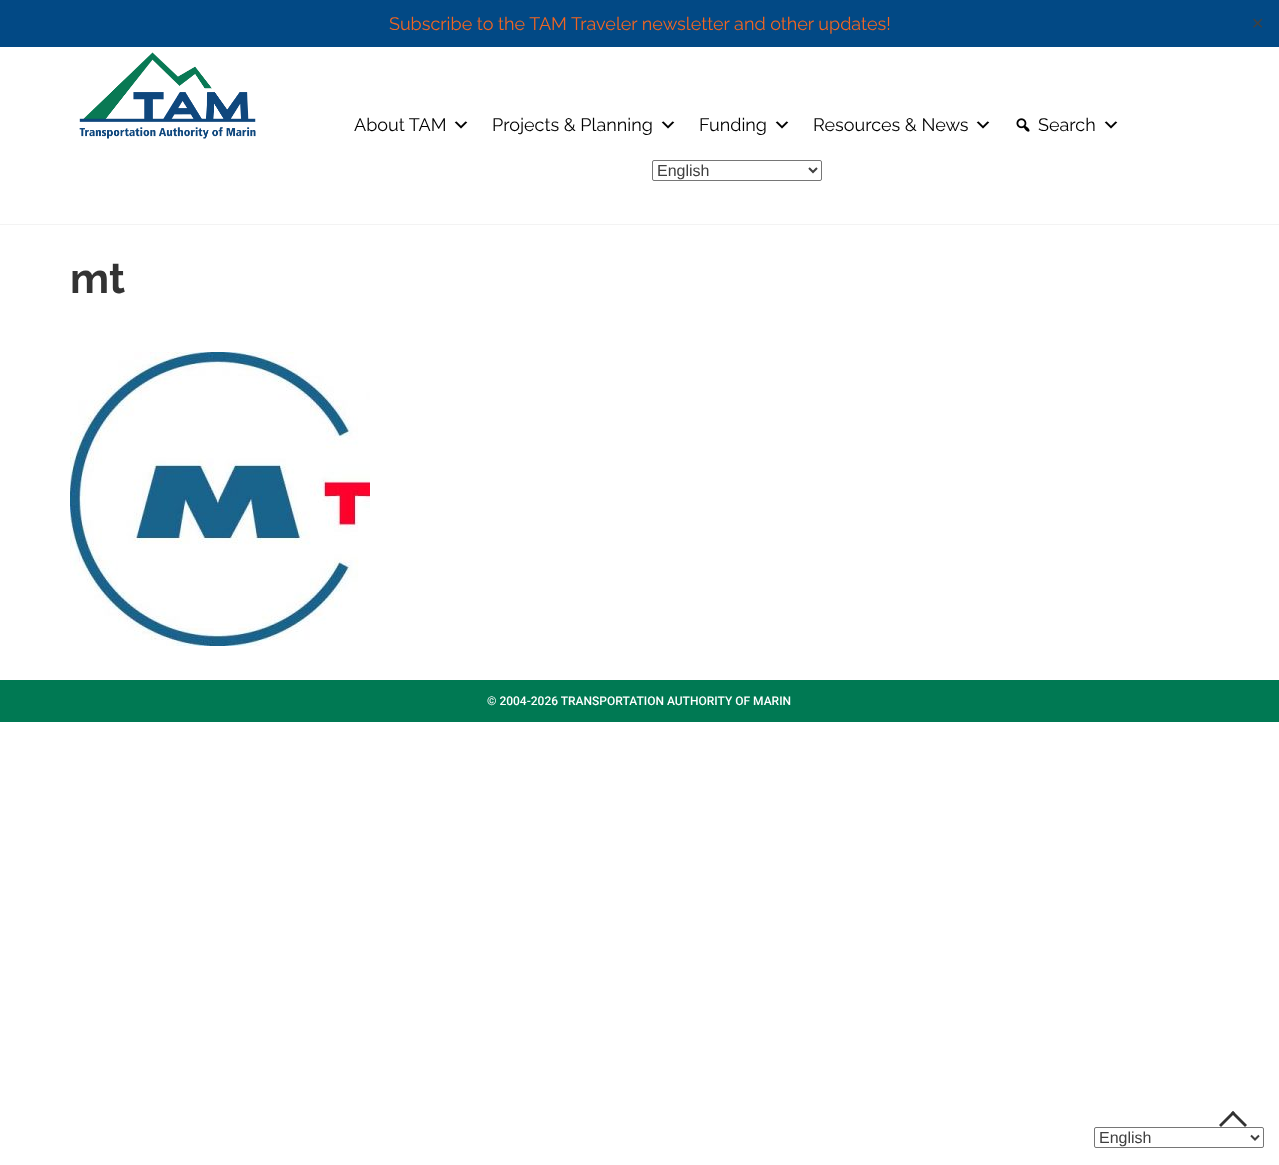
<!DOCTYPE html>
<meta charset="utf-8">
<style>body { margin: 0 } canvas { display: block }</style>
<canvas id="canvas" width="1279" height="1165"></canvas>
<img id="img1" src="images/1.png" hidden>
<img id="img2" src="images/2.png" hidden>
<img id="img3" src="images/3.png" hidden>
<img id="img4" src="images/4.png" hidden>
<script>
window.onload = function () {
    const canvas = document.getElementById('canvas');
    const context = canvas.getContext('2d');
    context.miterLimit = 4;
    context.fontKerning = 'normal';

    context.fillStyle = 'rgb(255, 255, 255)';
    context.fillRect(0, 0, 1279, 1165);
    context.fillStyle = 'rgb(2, 73, 133)';
    context.fillRect(0, 0, 1279, 47);
    context.fillStyle = 'rgb(243, 243, 243)';
    context.fillRect(0, 224, 1279, 1);
    context.drawImage(document.getElementById('img1'), 79, 52, 177, 87);
    context.drawImage(document.getElementById('img2'), 454, 121, 14, 8);
    context.drawImage(document.getElementById('img2'), 661, 121, 14, 8);
    context.drawImage(document.getElementById('img2'), 775, 121, 14, 8);
    context.drawImage(document.getElementById('img2'), 976, 121, 14, 8);
    context.drawImage(document.getElementById('img3'), 1016, 118, 14, 14);
    context.drawImage(document.getElementById('img2'), 1104, 121, 14, 8);
    context.beginPath();
    context.roundRect(652.5, 160.5, 169, 20, 1.5);
    context.strokeStyle = 'rgb(118, 118, 118)';
    context.stroke();
    context.beginPath();
    context.moveTo(809, 168);
    context.lineTo(813, 172);
    context.lineTo(817, 168);
    context.strokeStyle = 'rgb(64, 64, 64)';
    context.lineWidth = 2;
    context.stroke();
    context.drawImage(document.getElementById('img4'), 70, 352, 300, 294);
    context.fillStyle = 'rgb(0, 121, 83)';
    context.fillRect(0, 680, 1279, 42);
    context.fillStyle = 'rgb(51, 51, 51)';
    context.beginPath();
    context.moveTo(1233, 1111);
    context.lineTo(1247, 1125);
    context.lineTo(1245, 1127);
    context.lineTo(1231, 1113);
    context.closePath();
    context.fill();
    context.beginPath();
    context.moveTo(1233, 1111);
    context.lineTo(1235, 1113);
    context.lineTo(1221, 1127);
    context.lineTo(1219, 1125);
    context.closePath();
    context.fill();
    context.beginPath();
    context.roundRect(1094.5, 1127.5, 169, 20, 1.5);
    context.strokeStyle = 'rgb(118, 118, 118)';
    context.lineWidth = 1;
    context.stroke();
    context.beginPath();
    context.moveTo(1251, 1135.5);
    context.lineTo(1255, 1139.5);
    context.lineTo(1259, 1135.5);
    context.strokeStyle = 'rgb(64, 64, 64)';
    context.lineWidth = 2;
    context.stroke();
    context.font = '18px Raleway';
    context.fillStyle = 'rgb(241, 101, 33)';
    context.fillText('Subscribe to the TAM Traveler newsletter and other updates!', 389, 30);
    context.font = '16px DejaVu Sans';
    context.fillStyle = 'rgb(64, 64, 64)';
    context.fillText('✕', 1251, 29);
    context.font = '18px Raleway';
    context.fillStyle = 'rgb(0, 0, 0)';
    context.fillText('About TAM', 354, 131);
    context.fillText('Projects & Planning', 492, 131);
    context.fillText('Funding', 699, 131);
    context.fillText('Resources & News', 813, 131);
    context.fillText('Search', 1038, 131);
    context.font = '16px Liberation Sans';
    context.fillStyle = 'rgb(64, 64, 64)';
    context.fillText('English', 657, 176);
    context.font = 'bold 42px Raleway';
    context.fillStyle = 'rgb(51, 51, 51)';
    context.fillText('mt', 70, 293);
    context.font = '500 12px Roboto';
    context.fillStyle = 'rgb(255, 255, 255)';
    context.fillText('© 2004-2026 TRANSPORTATION AUTHORITY OF MARIN', 487, 705);
    context.font = '16px Liberation Sans';
    context.fillStyle = 'rgb(64, 64, 64)';
    context.fillText('English', 1099, 1143);
};
</script>
